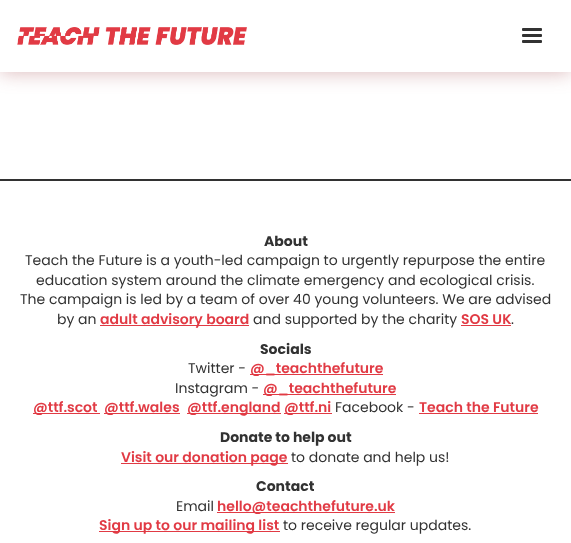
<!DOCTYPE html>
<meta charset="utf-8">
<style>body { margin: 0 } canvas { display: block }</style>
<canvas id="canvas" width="571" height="543"></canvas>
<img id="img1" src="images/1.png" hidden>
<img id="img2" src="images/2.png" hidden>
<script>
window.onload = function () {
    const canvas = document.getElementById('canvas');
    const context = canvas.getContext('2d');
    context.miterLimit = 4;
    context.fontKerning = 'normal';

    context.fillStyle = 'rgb(255, 255, 255)';
    context.fillRect(0, 0, 571, 543);
    context.fillStyle = 'rgba(146, 39, 46, 0.35)';
    context.filter = 'blur(10px)';
    context.beginPath();
    context.rect(0, 0, 571, 72);
    context.fill();
    context.filter = 'none';
    context.fillStyle = 'rgb(255, 255, 255)';
    context.fillRect(0, 0, 571, 72);
    context.drawImage(document.getElementById('img1'), 17, 27, 230, 18);
    context.drawImage(document.getElementById('img2'), 522, 28, 20, 15);
    context.fillStyle = 'rgb(50, 50, 50)';
    context.fillRect(0, 179, 571, 2);
    context.fillStyle = 'rgb(225, 58, 68)';
    context.fillRect(100, 325, 149, 1);
    context.fillRect(461, 325, 50, 1);
    context.fillRect(250, 374, 133, 1);
    context.fillRect(263, 394, 133, 1);
    context.fillRect(33, 413, 67, 1);
    context.fillRect(104, 413, 76, 1);
    context.fillRect(187, 413, 94, 1);
    context.fillRect(284, 413, 48, 1);
    context.fillRect(419, 413, 119, 1);
    context.fillRect(121, 463, 167, 1);
    context.fillRect(217, 512, 178, 1);
    context.fillRect(99, 531, 181, 1);
    context.font = 'bold 14px Poppins';
    context.fillStyle = 'rgb(50, 50, 50)';
    context.fillText('About', 264, 246);
    context.font = '14px Poppins';
    context.fillText('Teach the Future is a youth-led campaign to urgently repurpose the entire', 25, 265);
    context.fillText('education system around the climate emergency and ecological crisis.', 36, 285);
    context.fillText('The campaign is led by a team of over 40 young volunteers. We are advised', 20, 304);
    context.fillText('by an', 57, 324);
    context.font = '600 14px Poppins';
    context.fillStyle = 'rgb(225, 58, 68)';
    context.fillText('adult advisory board', 100, 324);
    context.font = '14px Poppins';
    context.fillStyle = 'rgb(50, 50, 50)';
    context.fillText('and supported by the charity', 253, 324);
    context.font = '600 14px Poppins';
    context.fillStyle = 'rgb(225, 58, 68)';
    context.fillText('SOS UK', 461, 324);
    context.font = '14px Poppins';
    context.fillStyle = 'rgb(50, 50, 50)';
    context.fillText('.', 511, 324);
    context.font = 'bold 14px Poppins';
    context.fillText('Socials', 260, 354);
    context.font = '14px Poppins';
    context.fillText('Twitter -', 188, 373);
    context.font = '600 14px Poppins';
    context.fillStyle = 'rgb(225, 58, 68)';
    context.fillText('@_teachthefuture', 250, 373);
    context.font = '14px Poppins';
    context.fillStyle = 'rgb(50, 50, 50)';
    context.fillText('Instagram -', 175, 393);
    context.font = '600 14px Poppins';
    context.fillStyle = 'rgb(225, 58, 68)';
    context.fillText('@_teachthefuture', 263, 393);
    context.fillText('@ttf.scot', 33, 412);
    context.fillText('@ttf.wales', 104, 412);
    context.fillText('@ttf.england', 187, 412);
    context.fillText('@ttf.ni', 284, 412);
    context.font = '14px Poppins';
    context.fillStyle = 'rgb(50, 50, 50)';
    context.fillText('Facebook -', 335, 412);
    context.font = '600 14px Poppins';
    context.fillStyle = 'rgb(225, 58, 68)';
    context.fillText('Teach the Future', 419, 412);
    context.font = 'bold 14px Poppins';
    context.fillStyle = 'rgb(50, 50, 50)';
    context.fillText('Donate to help out', 220, 442);
    context.font = '600 14px Poppins';
    context.fillStyle = 'rgb(225, 58, 68)';
    context.fillText('Visit our donation page', 121, 462);
    context.font = '14px Poppins';
    context.fillStyle = 'rgb(50, 50, 50)';
    context.fillText('to donate and help us!', 291, 462);
    context.font = 'bold 14px Poppins';
    context.fillText('Contact', 256, 491);
    context.font = '14px Poppins';
    context.fillText('Email', 176, 511);
    context.font = '600 14px Poppins';
    context.fillStyle = 'rgb(225, 58, 68)';
    context.fillText('hello@teachthefuture.uk', 217, 511);
    context.fillText('Sign up to our mailing list', 99, 530);
    context.font = '14px Poppins';
    context.fillStyle = 'rgb(50, 50, 50)';
    context.fillText('to receive regular updates.', 283, 530);
};
</script>
